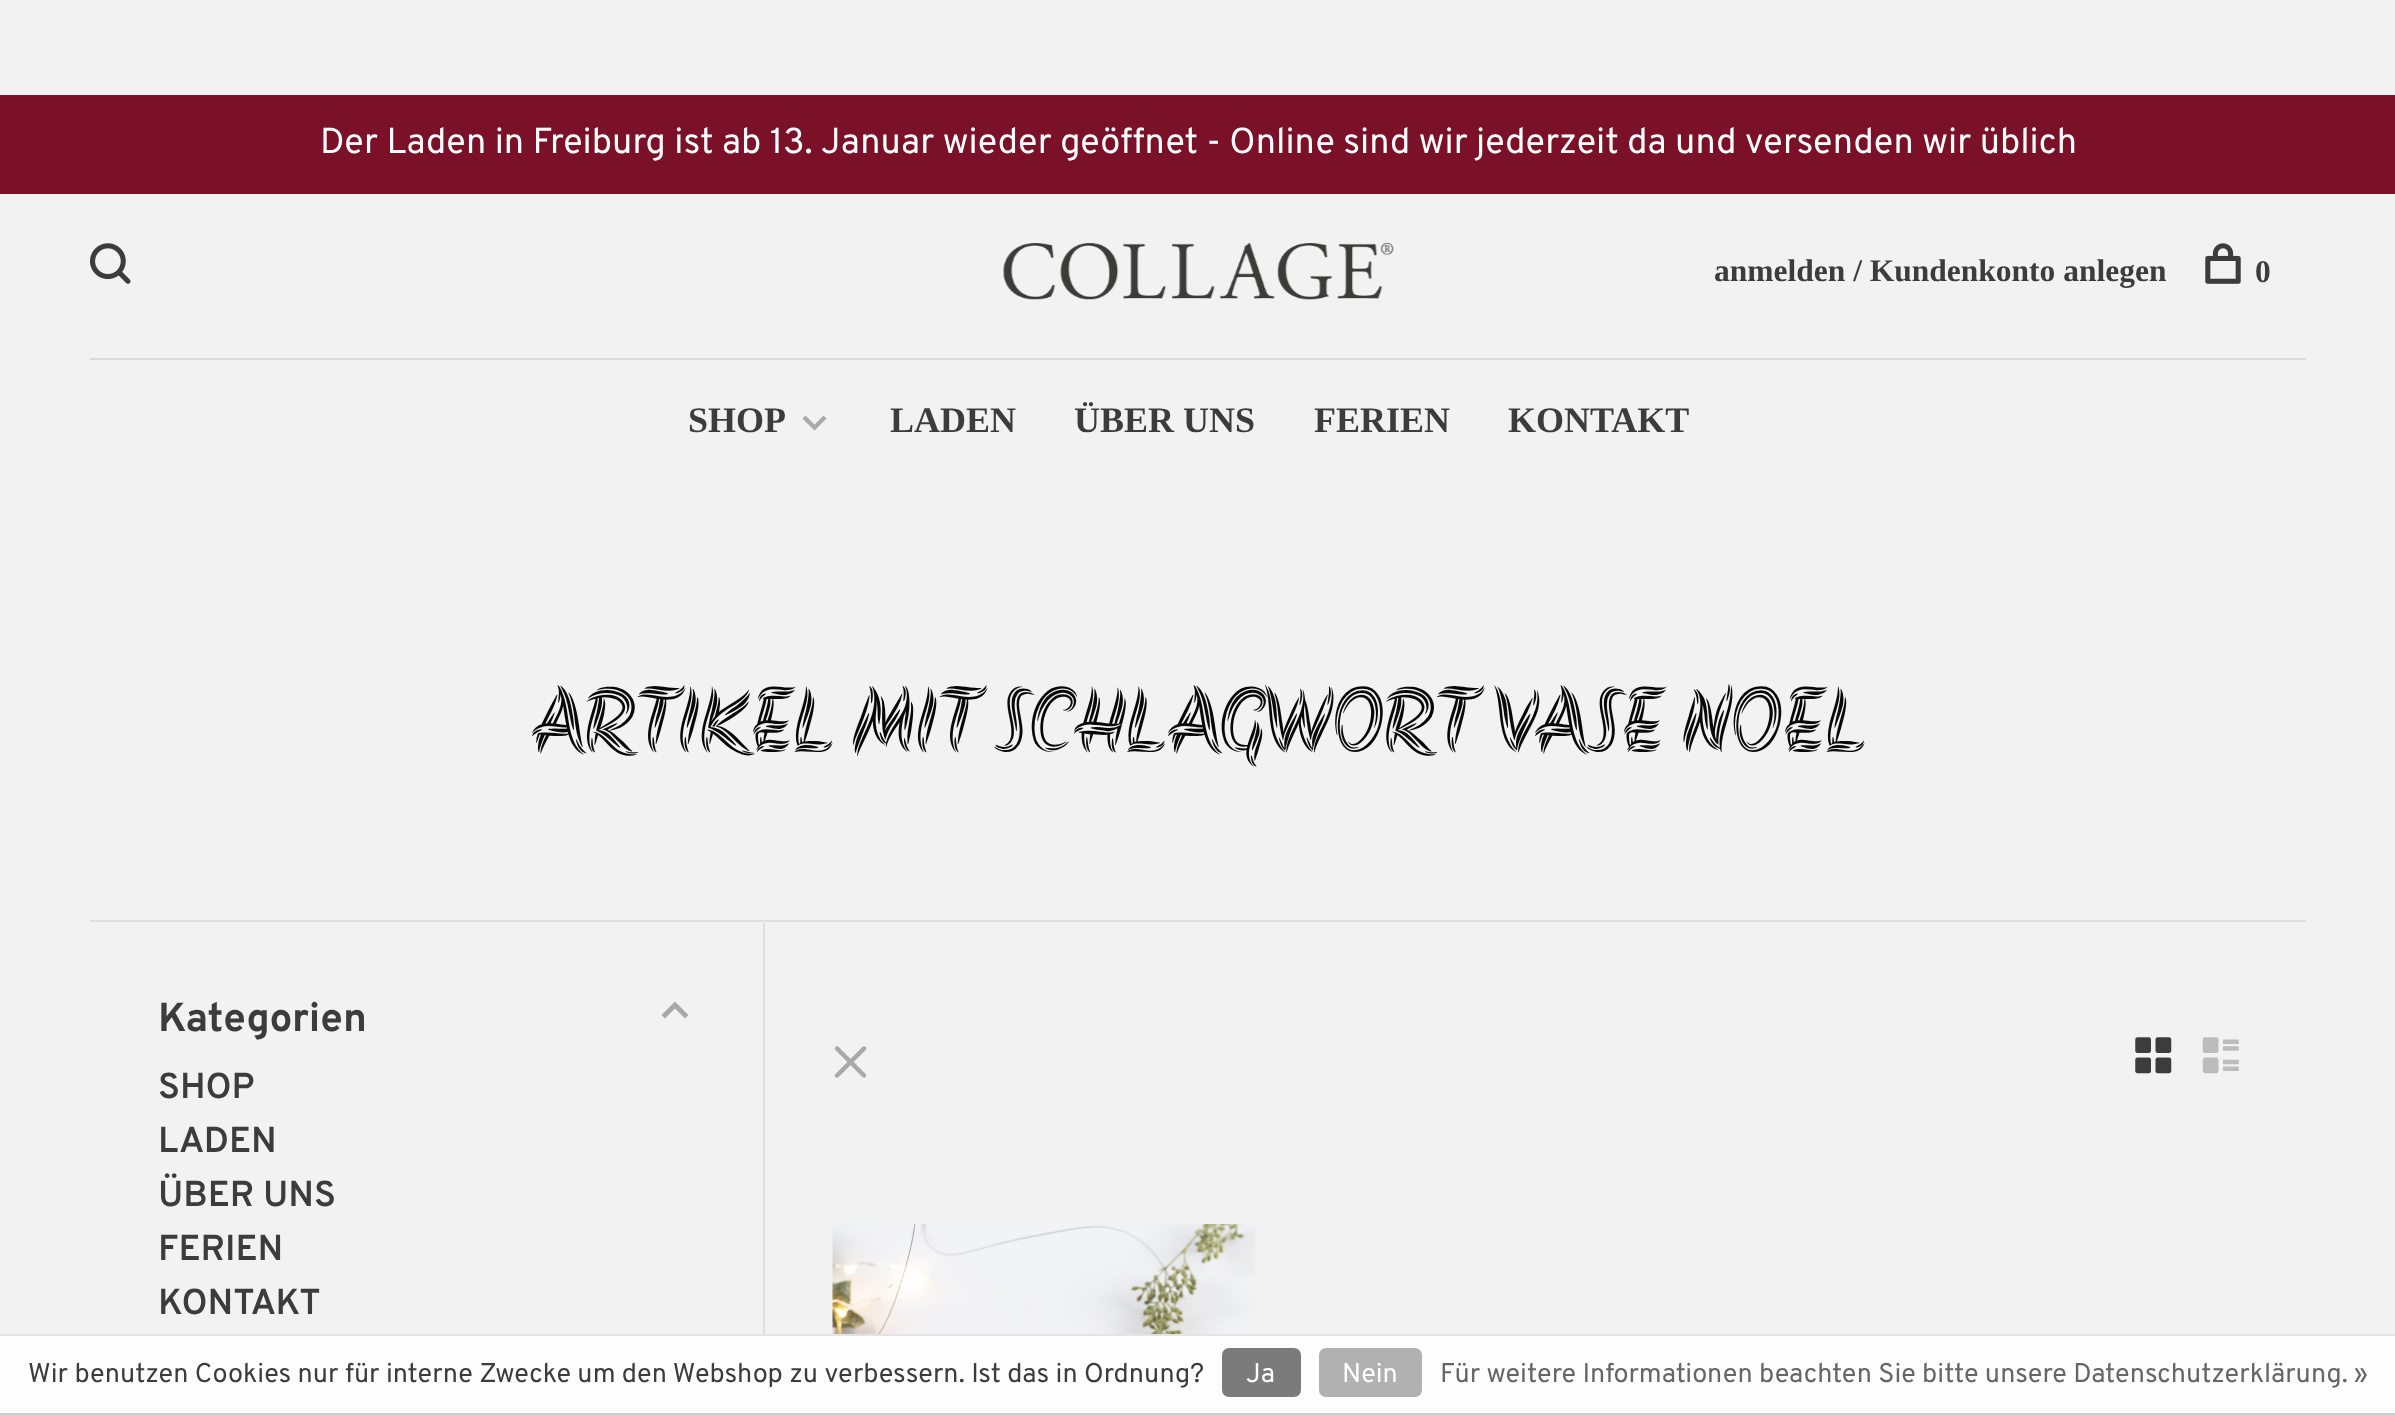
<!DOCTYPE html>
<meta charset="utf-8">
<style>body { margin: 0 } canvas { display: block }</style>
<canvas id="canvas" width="2395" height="1415"></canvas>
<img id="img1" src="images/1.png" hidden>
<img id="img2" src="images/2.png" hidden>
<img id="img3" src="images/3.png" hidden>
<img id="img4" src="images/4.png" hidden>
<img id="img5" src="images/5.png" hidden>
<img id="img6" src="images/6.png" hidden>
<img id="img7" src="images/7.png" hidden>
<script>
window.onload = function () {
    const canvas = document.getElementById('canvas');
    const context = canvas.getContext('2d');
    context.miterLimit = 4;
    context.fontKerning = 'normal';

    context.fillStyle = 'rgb(242, 242, 242)';
    context.fillRect(0, 0, 2395, 1415);
    context.fillStyle = 'rgb(123, 17, 40)';
    context.fillRect(0, 95, 2395, 99);
    context.drawImage(document.getElementById('img1'), 90, 243, 41, 41);
    context.drawImage(document.getElementById('img2'), 1003, 243, 391, 57);
    context.drawImage(document.getElementById('img3'), 2205, 243, 36, 41);
    context.fillStyle = 'rgb(218, 218, 218)';
    context.fillRect(90, 358, 2216, 2);
    context.fillStyle = 'rgb(169, 169, 169)';
    context.beginPath();
    context.moveTo(814.5, 430.5);
    context.lineTo(802.5, 418.5);
    context.lineTo(805.5, 415.5);
    context.lineTo(814.5, 424.5);
    context.lineTo(823.5, 415.5);
    context.lineTo(826.5, 418.5);
    context.closePath();
    context.fill();
    context.fillStyle = 'rgb(223, 223, 223)';
    context.fillRect(90, 920, 2216, 2);
    context.fillRect(763, 923, 2, 411);
    context.fillStyle = 'rgb(169, 169, 169)';
    context.beginPath();
    context.moveTo(675, 1001.5);
    context.lineTo(688.5, 1015);
    context.lineTo(685, 1018.5);
    context.lineTo(675, 1008.5);
    context.lineTo(665, 1018.5);
    context.lineTo(661.5, 1015);
    context.closePath();
    context.fill();
    context.drawImage(document.getElementById('img4'), 834, 1046, 33, 32);
    context.drawImage(document.getElementById('img5'), 2135, 1037, 37, 37);
    context.drawImage(document.getElementById('img6'), 2202, 1037, 37, 37);
    context.drawImage(document.getElementById('img7'), 832, 1224, 424, 110);
    context.fillStyle = 'rgb(253, 253, 253)';
    context.fillRect(0, 1336, 2395, 77);
    context.fillStyle = 'rgb(228, 228, 228)';
    context.fillRect(0, 1334, 2395, 2);
    context.fillStyle = 'rgb(204, 204, 204)';
    context.fillRect(0, 1413, 2395, 2);
    context.fillStyle = 'rgb(123, 123, 123)';
    context.beginPath();
    context.roundRect(1223, 1349, 77, 47, 6);
    context.fill();
    context.strokeStyle = 'rgb(123, 123, 123)';
    context.lineWidth = 2;
    context.stroke();
    context.fillStyle = 'rgb(177, 177, 177)';
    context.beginPath();
    context.roundRect(1320, 1349, 101, 47, 6);
    context.fill();
    context.strokeStyle = 'rgb(177, 177, 177)';
    context.stroke();
    context.font = '36px Overpass';
    context.fillStyle = 'rgb(255, 255, 255)';
    context.fillText('Der Laden in Freiburg ist ab 13. Januar wieder geöffnet - Online sind wir jederzeit da und versenden wir üblich', 320, 153);
    context.font = 'bold 31.5px Liberation Serif';
    context.fillStyle = 'rgb(60, 60, 60)';
    context.fillText('anmelden / Kundenkonto anlegen', 1714, 281);
    context.fillText('0', 2255, 282);
    context.font = 'bold 36px Liberation Serif';
    context.fillText('SHOP', 688, 432);
    context.fillText('LADEN', 890, 432);
    context.fillText('ÜBER UNS', 1074, 432);
    context.fillText('FERIEN', 1314, 432);
    context.fillText('KONTAKT', 1508, 432);
    context.font = '90px Akronim';
    context.fillStyle = 'rgb(8, 8, 8)';
    context.fillText('ARTIKEL MIT SCHLAGWORT VASE NOEL', 530, 752);
    context.font = 'bold 40.5px Overpass';
    context.fillStyle = 'rgb(60, 60, 60)';
    context.fillText('Kategorien', 158, 1031);
    context.font = '600 36px Overpass';
    context.fillText('SHOP', 158, 1098);
    context.fillText('LADEN', 158, 1152);
    context.fillText('ÜBER UNS', 158, 1206);
    context.fillText('FERIEN', 158, 1260);
    context.fillText('KONTAKT', 158, 1314);
    context.font = '27px Overpass';
    context.fillText('Wir benutzen Cookies nur für interne Zwecke um den Webshop zu verbessern. Ist das in Ordnung?', 28, 1382);
    context.fillStyle = 'rgb(255, 255, 255)';
    context.fillText('Ja', 1246, 1382);
    context.fillText('Nein', 1342, 1382);
    context.fillStyle = 'rgb(102, 102, 102)';
    context.fillText('Für weitere Informationen beachten Sie bitte unsere Datenschutzerklärung. »', 1440, 1382);
};
</script>
